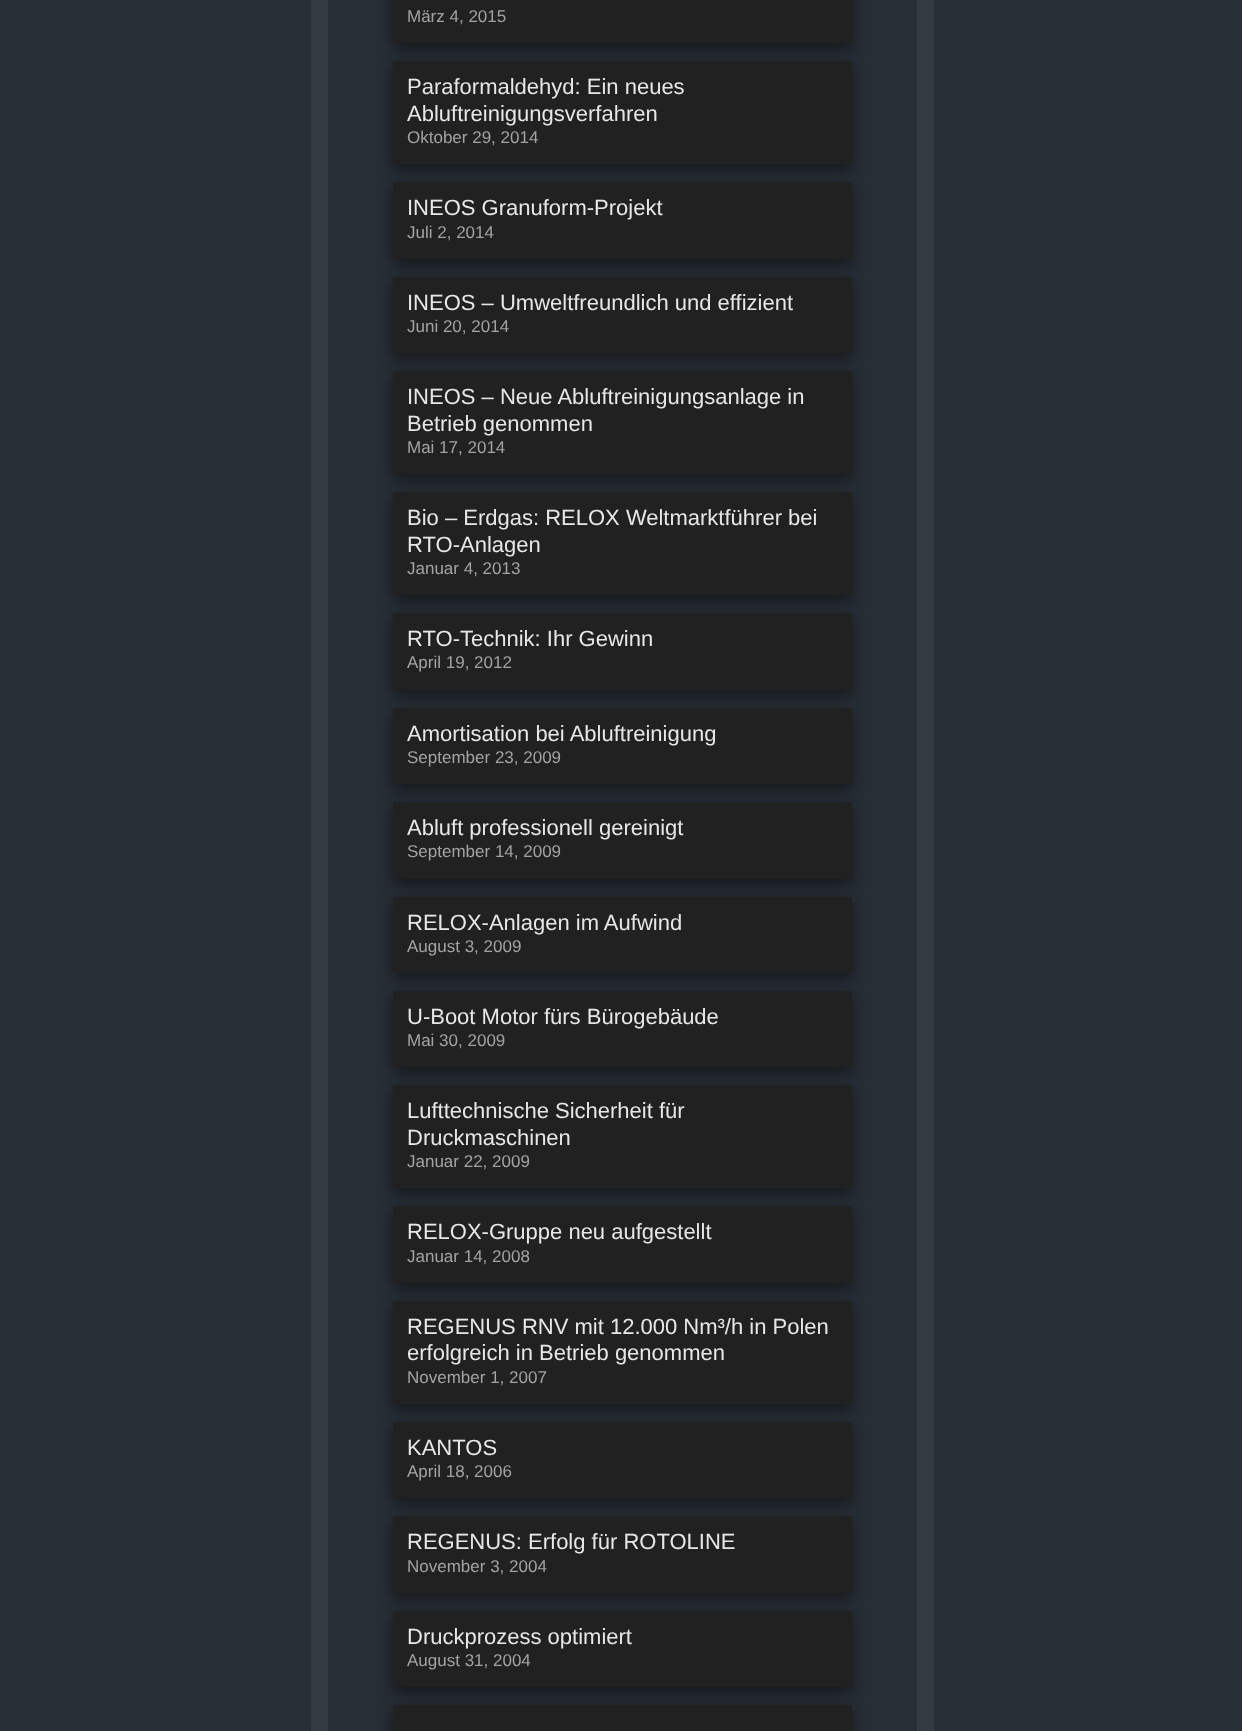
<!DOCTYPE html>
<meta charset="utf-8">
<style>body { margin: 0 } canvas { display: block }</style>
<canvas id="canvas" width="1242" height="1731"></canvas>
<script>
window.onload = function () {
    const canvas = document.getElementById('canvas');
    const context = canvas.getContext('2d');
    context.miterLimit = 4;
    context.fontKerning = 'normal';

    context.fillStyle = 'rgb(53, 59, 67)';
    context.fillRect(0, 0, 1242, 1731);
    context.fillStyle = 'rgb(40, 46, 54)';
    context.fillRect(0, 0, 311, 1731);
    context.fillRect(328, 0, 914, 1731);
    context.fillStyle = 'rgb(53, 59, 67)';
    context.fillRect(917, 0, 17, 1731);
    context.fillStyle = 'rgba(0, 0, 0, 0.5)';
    context.filter = 'blur(7.5px)';
    context.beginPath();
    context.rect(393, -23, 459, 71);
    context.fill();
    context.filter = 'none';
    context.fillStyle = 'rgb(33, 33, 33)';
    context.fillRect(393, 0, 459, 43);
    context.fillStyle = 'rgba(0, 0, 0, 0.5)';
    context.filter = 'blur(7.5px)';
    context.beginPath();
    context.rect(393, 66, 459, 103);
    context.fill();
    context.filter = 'none';
    context.fillStyle = 'rgb(33, 33, 33)';
    context.fillRect(393, 61, 459, 103);
    context.fillStyle = 'rgba(0, 0, 0, 0.5)';
    context.filter = 'blur(7.5px)';
    context.beginPath();
    context.rect(393, 187, 459, 77);
    context.fill();
    context.filter = 'none';
    context.fillStyle = 'rgb(33, 33, 33)';
    context.fillRect(393, 182, 459, 77);
    context.fillStyle = 'rgba(0, 0, 0, 0.5)';
    context.filter = 'blur(7.5px)';
    context.beginPath();
    context.rect(393, 282, 459, 76);
    context.fill();
    context.filter = 'none';
    context.fillStyle = 'rgb(33, 33, 33)';
    context.fillRect(393, 277, 459, 76);
    context.fillStyle = 'rgba(0, 0, 0, 0.5)';
    context.filter = 'blur(7.5px)';
    context.beginPath();
    context.rect(393, 376, 459, 103);
    context.fill();
    context.filter = 'none';
    context.fillStyle = 'rgb(33, 33, 33)';
    context.fillRect(393, 371, 459, 103);
    context.fillStyle = 'rgba(0, 0, 0, 0.5)';
    context.filter = 'blur(7.5px)';
    context.beginPath();
    context.rect(393, 497, 459, 103);
    context.fill();
    context.filter = 'none';
    context.fillStyle = 'rgb(33, 33, 33)';
    context.fillRect(393, 492, 459, 103);
    context.fillStyle = 'rgba(0, 0, 0, 0.5)';
    context.filter = 'blur(7.5px)';
    context.beginPath();
    context.rect(393, 618, 459, 77);
    context.fill();
    context.filter = 'none';
    context.fillStyle = 'rgb(33, 33, 33)';
    context.fillRect(393, 613, 459, 77);
    context.fillStyle = 'rgba(0, 0, 0, 0.5)';
    context.filter = 'blur(7.5px)';
    context.beginPath();
    context.rect(393, 713, 459, 76);
    context.fill();
    context.filter = 'none';
    context.fillStyle = 'rgb(33, 33, 33)';
    context.fillRect(393, 708, 459, 76);
    context.fillStyle = 'rgba(0, 0, 0, 0.5)';
    context.filter = 'blur(7.5px)';
    context.beginPath();
    context.rect(393, 807, 459, 77);
    context.fill();
    context.filter = 'none';
    context.fillStyle = 'rgb(33, 33, 33)';
    context.fillRect(393, 802, 459, 77);
    context.fillStyle = 'rgba(0, 0, 0, 0.5)';
    context.filter = 'blur(7.5px)';
    context.beginPath();
    context.rect(393, 902, 459, 76);
    context.fill();
    context.filter = 'none';
    context.fillStyle = 'rgb(33, 33, 33)';
    context.fillRect(393, 897, 459, 76);
    context.fillStyle = 'rgba(0, 0, 0, 0.5)';
    context.filter = 'blur(7.5px)';
    context.beginPath();
    context.rect(393, 996, 459, 76);
    context.fill();
    context.filter = 'none';
    context.fillStyle = 'rgb(33, 33, 33)';
    context.fillRect(393, 991, 459, 76);
    context.fillStyle = 'rgba(0, 0, 0, 0.5)';
    context.filter = 'blur(7.5px)';
    context.beginPath();
    context.rect(393, 1090, 459, 103);
    context.fill();
    context.filter = 'none';
    context.fillStyle = 'rgb(33, 33, 33)';
    context.fillRect(393, 1085, 459, 103);
    context.fillStyle = 'rgba(0, 0, 0, 0.5)';
    context.filter = 'blur(7.5px)';
    context.beginPath();
    context.rect(393, 1211, 459, 77);
    context.fill();
    context.filter = 'none';
    context.fillStyle = 'rgb(33, 33, 33)';
    context.fillRect(393, 1206, 459, 77);
    context.fillStyle = 'rgba(0, 0, 0, 0.5)';
    context.filter = 'blur(7.5px)';
    context.beginPath();
    context.rect(393, 1306, 459, 103);
    context.fill();
    context.filter = 'none';
    context.fillStyle = 'rgb(33, 33, 33)';
    context.fillRect(393, 1301, 459, 103);
    context.fillStyle = 'rgba(0, 0, 0, 0.5)';
    context.filter = 'blur(7.5px)';
    context.beginPath();
    context.rect(393, 1427, 459, 76);
    context.fill();
    context.filter = 'none';
    context.fillStyle = 'rgb(33, 33, 33)';
    context.fillRect(393, 1422, 459, 76);
    context.fillStyle = 'rgba(0, 0, 0, 0.5)';
    context.filter = 'blur(7.5px)';
    context.beginPath();
    context.rect(393, 1521, 459, 77);
    context.fill();
    context.filter = 'none';
    context.fillStyle = 'rgb(33, 33, 33)';
    context.fillRect(393, 1516, 459, 77);
    context.fillStyle = 'rgba(0, 0, 0, 0.5)';
    context.filter = 'blur(7.5px)';
    context.beginPath();
    context.rect(393, 1616, 459, 76);
    context.fill();
    context.filter = 'none';
    context.fillStyle = 'rgb(33, 33, 33)';
    context.fillRect(393, 1611, 459, 76);
    context.fillStyle = 'rgba(0, 0, 0, 0.5)';
    context.filter = 'blur(7.5px)';
    context.beginPath();
    context.rect(393, 1710, 459, 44);
    context.fill();
    context.filter = 'none';
    context.fillStyle = 'rgb(33, 33, 33)';
    context.fillRect(393, 1705, 459, 26);
    context.font = '17px Liberation Sans';
    context.fillStyle = 'rgb(165, 162, 162)';
    context.fillText('März 4, 2015', 407, 22);
    context.font = '22px Liberation Sans';
    context.fillStyle = 'rgb(231, 231, 231)';
    context.fillText('Paraformaldehyd: Ein neues', 407, 94);
    context.fillText('Abluftreinigungsverfahren', 407, 121);
    context.font = '17px Liberation Sans';
    context.fillStyle = 'rgb(165, 162, 162)';
    context.fillText('Oktober 29, 2014', 407, 143);
    context.font = '22px Liberation Sans';
    context.fillStyle = 'rgb(231, 231, 231)';
    context.fillText('INEOS Granuform-Projekt', 407, 215);
    context.font = '17px Liberation Sans';
    context.fillStyle = 'rgb(165, 162, 162)';
    context.fillText('Juli 2, 2014', 407, 238);
    context.font = '22px Liberation Sans';
    context.fillStyle = 'rgb(231, 231, 231)';
    context.fillText('INEOS – Umweltfreundlich und effizient', 407, 310);
    context.font = '17px Liberation Sans';
    context.fillStyle = 'rgb(165, 162, 162)';
    context.fillText('Juni 20, 2014', 407, 332);
    context.font = '22px Liberation Sans';
    context.fillStyle = 'rgb(231, 231, 231)';
    context.fillText('INEOS – Neue Abluftreinigungsanlage in', 407, 404);
    context.fillText('Betrieb genommen', 407, 431);
    context.font = '17px Liberation Sans';
    context.fillStyle = 'rgb(165, 162, 162)';
    context.fillText('Mai 17, 2014', 407, 453);
    context.font = '22px Liberation Sans';
    context.fillStyle = 'rgb(231, 231, 231)';
    context.fillText('Bio – Erdgas: RELOX Weltmarktführer bei', 407, 525);
    context.fillText('RTO-Anlagen', 407, 552);
    context.font = '17px Liberation Sans';
    context.fillStyle = 'rgb(165, 162, 162)';
    context.fillText('Januar 4, 2013', 407, 574);
    context.font = '22px Liberation Sans';
    context.fillStyle = 'rgb(231, 231, 231)';
    context.fillText('RTO-Technik: Ihr Gewinn', 407, 646);
    context.font = '17px Liberation Sans';
    context.fillStyle = 'rgb(165, 162, 162)';
    context.fillText('April 19, 2012', 407, 668);
    context.font = '22px Liberation Sans';
    context.fillStyle = 'rgb(231, 231, 231)';
    context.fillText('Amortisation bei Abluftreinigung', 407, 741);
    context.font = '17px Liberation Sans';
    context.fillStyle = 'rgb(165, 162, 162)';
    context.fillText('September 23, 2009', 407, 763);
    context.font = '22px Liberation Sans';
    context.fillStyle = 'rgb(231, 231, 231)';
    context.fillText('Abluft professionell gereinigt', 407, 835);
    context.font = '17px Liberation Sans';
    context.fillStyle = 'rgb(165, 162, 162)';
    context.fillText('September 14, 2009', 407, 857);
    context.font = '22px Liberation Sans';
    context.fillStyle = 'rgb(231, 231, 231)';
    context.fillText('RELOX-Anlagen im Aufwind', 407, 930);
    context.font = '17px Liberation Sans';
    context.fillStyle = 'rgb(165, 162, 162)';
    context.fillText('August 3, 2009', 407, 952);
    context.font = '22px Liberation Sans';
    context.fillStyle = 'rgb(231, 231, 231)';
    context.fillText('U-Boot Motor fürs Bürogebäude', 407, 1024);
    context.font = '17px Liberation Sans';
    context.fillStyle = 'rgb(165, 162, 162)';
    context.fillText('Mai 30, 2009', 407, 1046);
    context.font = '22px Liberation Sans';
    context.fillStyle = 'rgb(231, 231, 231)';
    context.fillText('Lufttechnische Sicherheit für', 407, 1118);
    context.fillText('Druckmaschinen', 407, 1145);
    context.font = '17px Liberation Sans';
    context.fillStyle = 'rgb(165, 162, 162)';
    context.fillText('Januar 22, 2009', 407, 1167);
    context.font = '22px Liberation Sans';
    context.fillStyle = 'rgb(231, 231, 231)';
    context.fillText('RELOX-Gruppe neu aufgestellt', 407, 1239);
    context.font = '17px Liberation Sans';
    context.fillStyle = 'rgb(165, 162, 162)';
    context.fillText('Januar 14, 2008', 407, 1262);
    context.font = '22px Liberation Sans';
    context.fillStyle = 'rgb(231, 231, 231)';
    context.fillText('REGENUS RNV mit 12.000 Nm³/h in Polen', 407, 1334);
    context.fillText('erfolgreich in Betrieb genommen', 407, 1360);
    context.font = '17px Liberation Sans';
    context.fillStyle = 'rgb(165, 162, 162)';
    context.fillText('November 1, 2007', 407, 1383);
    context.font = '22px Liberation Sans';
    context.fillStyle = 'rgb(231, 231, 231)';
    context.fillText('KANTOS', 407, 1455);
    context.font = '17px Liberation Sans';
    context.fillStyle = 'rgb(165, 162, 162)';
    context.fillText('April 18, 2006', 407, 1477);
    context.font = '22px Liberation Sans';
    context.fillStyle = 'rgb(231, 231, 231)';
    context.fillText('REGENUS: Erfolg für ROTOLINE', 407, 1549);
    context.font = '17px Liberation Sans';
    context.fillStyle = 'rgb(165, 162, 162)';
    context.fillText('November 3, 2004', 407, 1572);
    context.font = '22px Liberation Sans';
    context.fillStyle = 'rgb(231, 231, 231)';
    context.fillText('Druckprozess optimiert', 407, 1644);
    context.font = '17px Liberation Sans';
    context.fillStyle = 'rgb(165, 162, 162)';
    context.fillText('August 31, 2004', 407, 1666);
};
</script>
